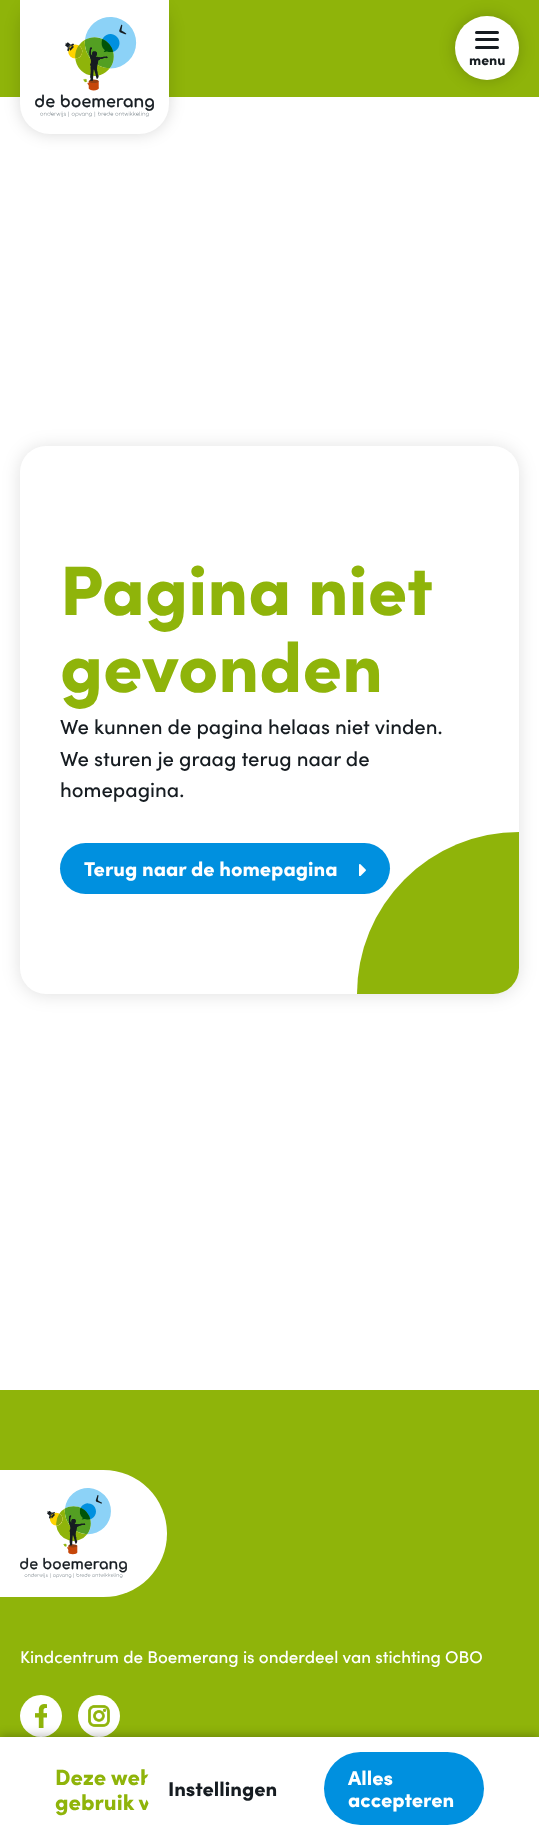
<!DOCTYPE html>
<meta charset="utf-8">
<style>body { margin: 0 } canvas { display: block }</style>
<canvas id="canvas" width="539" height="1840"></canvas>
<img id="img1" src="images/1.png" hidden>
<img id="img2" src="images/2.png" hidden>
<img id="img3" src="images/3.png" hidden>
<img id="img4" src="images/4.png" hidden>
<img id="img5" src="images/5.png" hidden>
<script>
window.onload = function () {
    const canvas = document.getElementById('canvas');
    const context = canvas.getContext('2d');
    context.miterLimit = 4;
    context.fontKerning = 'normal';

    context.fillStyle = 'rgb(255, 255, 255)';
    context.fillRect(0, 0, 539, 1840);
    context.fillStyle = 'rgb(143, 180, 10)';
    context.fillRect(0, 0, 539, 97);
    context.fillStyle = 'rgba(0, 0, 0, 0.15)';
    context.filter = 'blur(8px)';
    context.beginPath();
    context.roundRect(20, 0, 149, 134, 30);
    context.fill();
    context.filter = 'none';
    context.fillStyle = 'rgb(255, 255, 255)';
    context.beginPath();
    context.roundRect(20, 0, 149, 134, [0, 0, 30, 30]);
    context.fill();
    context.drawImage(document.getElementById('img1'), 35, 17, 119, 100);
    context.fillStyle = 'rgba(0, 0, 0, 0.2)';
    context.filter = 'blur(8px)';
    context.beginPath();
    context.roundRect(455, 16, 64, 64, 32);
    context.fill();
    context.filter = 'none';
    context.fillStyle = 'rgb(255, 255, 255)';
    context.beginPath();
    context.arc(487, 48, 32, 0, 2 * Math.PI);
    context.fill();
    context.fillStyle = 'rgb(22, 28, 33)';
    context.beginPath();
    context.roundRect(475, 31, 24, 3, 1.5);
    context.fill();
    context.beginPath();
    context.roundRect(475, 38, 24, 3, 1.5);
    context.fill();
    context.beginPath();
    context.roundRect(475, 46, 24, 3, 1.5);
    context.fill();
    context.fillStyle = 'rgba(0, 0, 0, 0.12)';
    context.filter = 'blur(9px)';
    context.beginPath();
    context.roundRect(20, 447, 499, 548, 26);
    context.fill();
    context.filter = 'none';
    context.fillStyle = 'rgb(255, 255, 255)';
    context.beginPath();
    context.roundRect(20, 446, 499, 548, 26);
    context.fill();
    context.fillStyle = 'rgb(143, 180, 10)';
    context.beginPath();
    context.roundRect(357, 832, 162, 162, [162, 0, 26, 0]);
    context.fill();
    context.fillStyle = 'rgb(0, 144, 223)';
    context.beginPath();
    context.roundRect(60, 843, 330, 51, 25.5);
    context.fill();
    context.drawImage(document.getElementById('img2'), 359, 864, 7, 12);
    context.fillStyle = 'rgb(143, 180, 10)';
    context.fillRect(0, 1390, 539, 347);
    context.fillStyle = 'rgb(255, 255, 255)';
    context.beginPath();
    context.roundRect(20, 1470, 147, 127, [0, 63.5, 63.5, 0]);
    context.fill();
    context.fillRect(0, 1470, 20, 127);
    context.drawImage(document.getElementById('img3'), 20, 1488, 107, 90);
    context.beginPath();
    context.arc(41, 1716, 21, 0, 2 * Math.PI);
    context.fill();
    context.drawImage(document.getElementById('img4'), 35, 1704, 12, 24);
    context.beginPath();
    context.arc(99, 1716, 21, 0, 2 * Math.PI);
    context.fill();
    context.drawImage(document.getElementById('img5'), 88, 1705, 22, 22);
    context.fillStyle = 'rgba(0, 0, 0, 0.25)';
    context.filter = 'blur(5px)';
    context.beginPath();
    context.rect(0, 1735, 539, 103);
    context.fill();
    context.filter = 'none';
    context.fillStyle = 'rgb(255, 255, 255)';
    context.fillRect(0, 1737, 539, 103);
    context.fillStyle = 'rgb(0, 144, 223)';
    context.beginPath();
    context.roundRect(324, 1752, 160, 73, 36.5);
    context.fill();
    context.font = '900 14px Sofia';
    context.fillStyle = 'rgb(22, 28, 33)';
    context.fillText('menu', 469, 65);
    context.font = '900 70px Sofia';
    context.fillStyle = 'rgb(143, 180, 10)';
    context.fillText('Pagina niet', 60, 615);
    context.fillText('gevonden', 60, 692);
    context.font = '500 20.4px Sofia';
    context.fillStyle = 'rgb(22, 28, 33)';
    context.fillText('We kunnen de pagina helaas niet vinden.', 60, 734);
    context.fillText('We sturen je graag terug naar de', 60, 766);
    context.fillText('homepagina.', 60, 797);
    context.font = '900 20px Sofia';
    context.fillStyle = 'rgb(255, 255, 255)';
    context.fillText('Terug naar de homepagina', 84, 876);
    context.font = '500 17px Sofia';
    context.fillText('Kindcentrum de Boemerang is onderdeel van stichting OBO', 20, 1663);
    context.font = '900 22px Sofia';
    context.fillStyle = 'rgb(143, 180, 10)';
    context.fillText('Deze web', 55, 1785);
    context.fillText('gebruik v', 55, 1810);
    context.fillStyle = 'rgb(255, 255, 255)';
    context.beginPath();
    context.roundRect(144, 1763, 160, 51, 25.5);
    context.fill();
    context.font = '900 20px Sofia';
    context.fillStyle = 'rgb(22, 28, 33)';
    context.fillText('Instellingen', 168, 1796);
    context.fillStyle = 'rgb(255, 255, 255)';
    context.fillText('Alles', 348, 1785);
    context.fillText('accepteren', 348, 1807);
};
</script>
